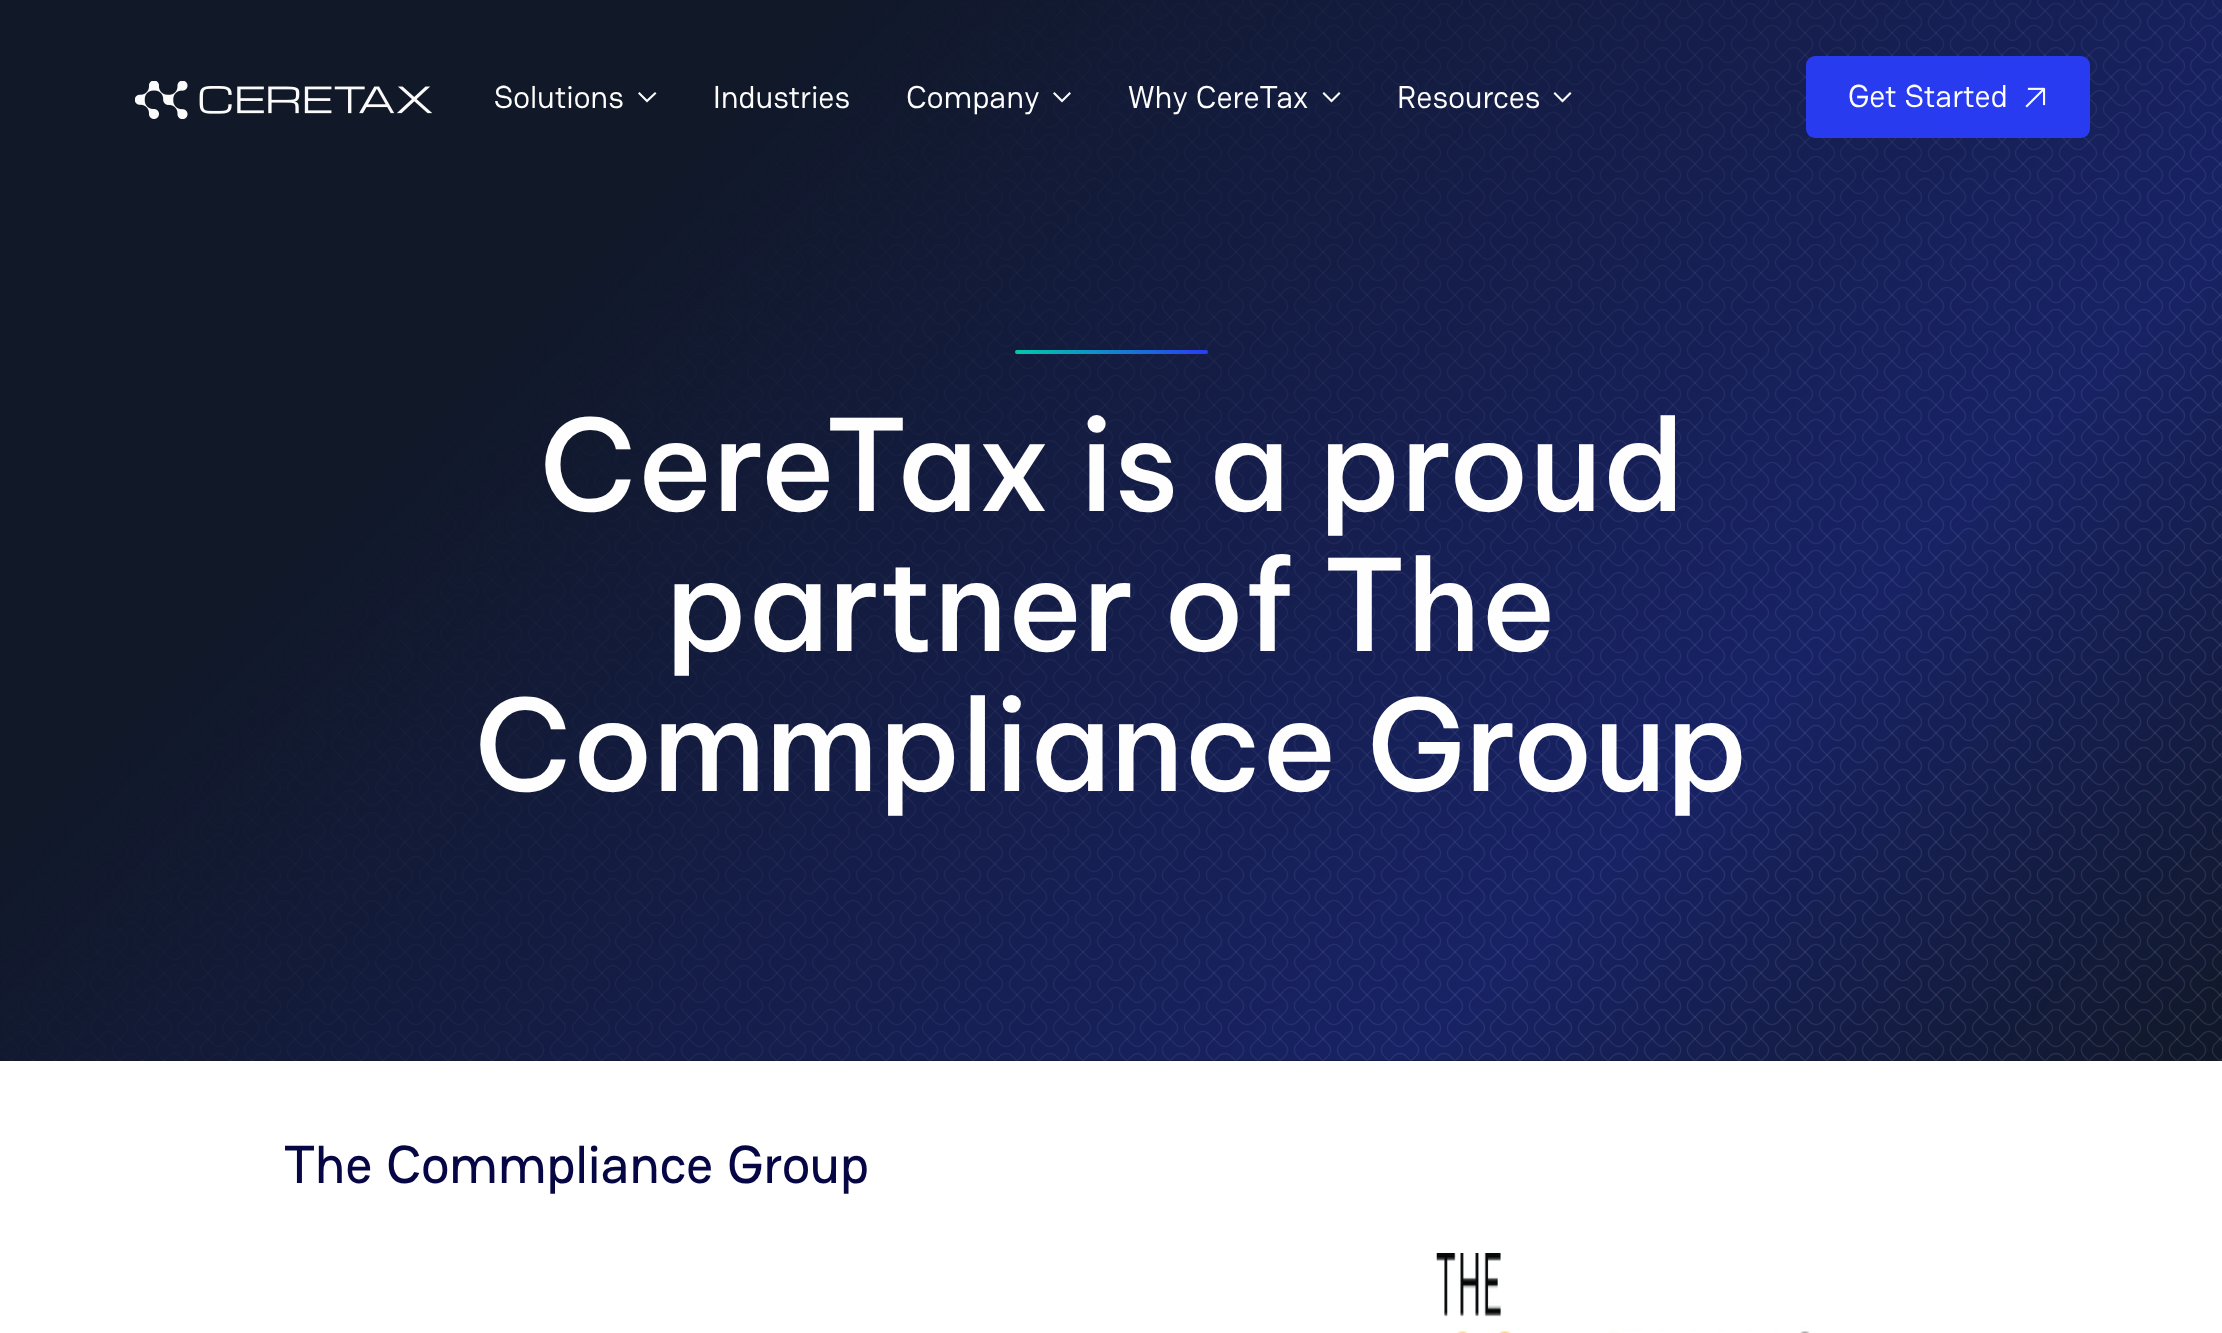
<!DOCTYPE html>
<meta charset="utf-8">
<style>body { margin: 0 } canvas { display: block }</style>
<canvas id="canvas" width="2222" height="1333"></canvas>
<img id="img1" src="images/3.png" hidden>
<img id="img2" src="images/1.png" hidden>
<img id="img3" src="images/2.png" hidden>
<img id="img4" src="images/4.png" hidden>
<script>
window.onload = function () {
    const canvas = document.getElementById('canvas');
    const context = canvas.getContext('2d');
    context.miterLimit = 4;
    context.fontKerning = 'normal';
    let gradient;

    context.fillStyle = 'rgb(17, 24, 40)';
    context.fillRect(0, 0, 2222, 1333);
    context.drawImage(document.getElementById('img1'), 0, 0, 2222, 1061);
    context.drawImage(document.getElementById('img2'), 135, 81, 297, 38);
    context.fillStyle = 'rgb(250, 251, 251)';
    context.beginPath();
    context.moveTo(647, 102.5);
    context.lineTo(638, 93.5);
    context.lineTo(639.5, 92);
    context.lineTo(647, 99.5);
    context.lineTo(655, 92);
    context.lineTo(656.5, 93.5);
    context.closePath();
    context.fill();
    context.fillStyle = 'rgba(254, 254, 254, 0.98)';
    context.beginPath();
    context.moveTo(1062, 102.5);
    context.lineTo(1053, 93.5);
    context.lineTo(1054.5, 92);
    context.lineTo(1062, 99.5);
    context.lineTo(1069.5, 92);
    context.lineTo(1071, 93.5);
    context.closePath();
    context.fill();
    context.beginPath();
    context.moveTo(1331.5, 102.5);
    context.lineTo(1322.5, 93.5);
    context.lineTo(1324, 92);
    context.lineTo(1331.5, 99.5);
    context.lineTo(1339, 92);
    context.lineTo(1340.5, 93.5);
    context.closePath();
    context.fill();
    context.beginPath();
    context.moveTo(1562.5, 102.5);
    context.lineTo(1553.5, 93.5);
    context.lineTo(1555, 92);
    context.lineTo(1562.5, 99.5);
    context.lineTo(1570, 92);
    context.lineTo(1571.5, 93.5);
    context.closePath();
    context.fill();
    context.fillStyle = 'rgba(41, 60, 243, 0.98)';
    context.beginPath();
    context.roundRect(1806, 56, 284, 82, 9);
    context.fill();
    context.drawImage(document.getElementById('img3'), 2025, 87, 21, 21);
    gradient = context.createLinearGradient(1015, 352, 1208, 352);
    gradient.addColorStop(0, 'rgb(0, 203, 170)');
    gradient.addColorStop(1, 'rgb(41, 60, 243)');
    context.fillStyle = gradient;
    context.beginPath();
    context.roundRect(1015, 350, 193, 4, 2);
    context.fill();
    context.fillStyle = 'rgb(255, 255, 255)';
    context.fillRect(0, 1061, 2222, 272);
    context.drawImage(document.getElementById('img4'), 1436, 1253, 374, 80);
    context.font = '31.5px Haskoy';
    context.fillStyle = 'rgb(254, 254, 254)';
    context.fillText('Solutions', 494, 108);
    context.fillText('Industries', 713, 108);
    context.fillText('Company', 906, 108);
    context.fillText('Why CereTax', 1128, 108);
    context.fillText('Resources', 1397, 108);
    context.fillText('Get Started', 1848, 107);
    context.font = '500 126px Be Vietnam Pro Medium';
    context.fillText('CereTax is a proud', 539, 511);
    context.fillText('partner of The', 665, 651);
    context.fillText('Commpliance Group', 474, 791);
    context.font = '500 53.25px Haskoy';
    context.fillStyle = 'rgb(6, 6, 68)';
    context.fillText('The Commpliance Group', 284, 1183);
};
</script>
